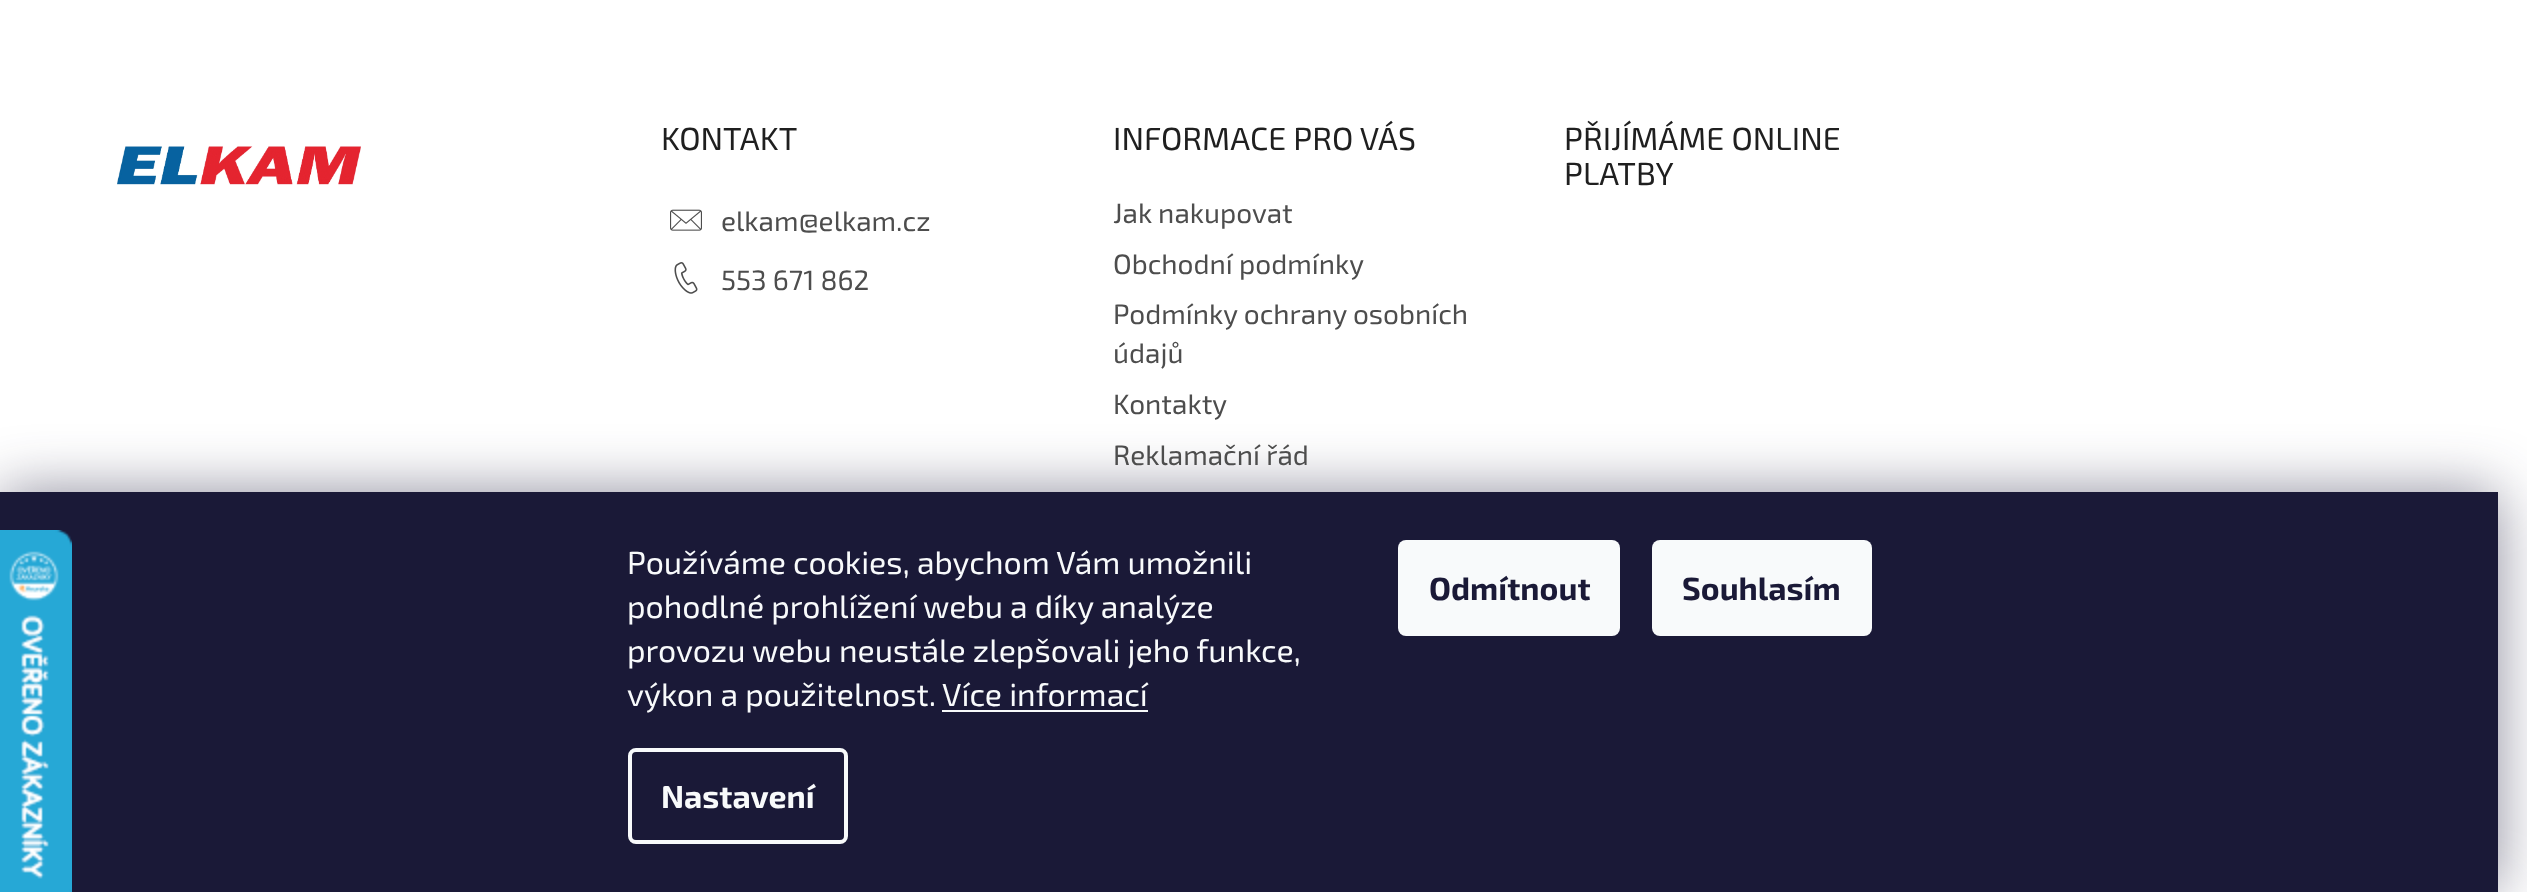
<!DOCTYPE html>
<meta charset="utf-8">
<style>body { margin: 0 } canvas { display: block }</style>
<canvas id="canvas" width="2527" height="892"></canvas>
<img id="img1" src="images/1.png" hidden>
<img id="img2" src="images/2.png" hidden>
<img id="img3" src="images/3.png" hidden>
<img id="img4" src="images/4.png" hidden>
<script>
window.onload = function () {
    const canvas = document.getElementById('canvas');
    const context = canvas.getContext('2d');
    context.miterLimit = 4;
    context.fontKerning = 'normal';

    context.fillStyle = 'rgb(255, 255, 255)';
    context.fillRect(0, 0, 2527, 892);
    context.drawImage(document.getElementById('img1'), 117, 146, 244, 39);
    context.drawImage(document.getElementById('img2'), 670, 209, 32, 22);
    context.drawImage(document.getElementById('img3'), 674, 262, 24, 32);
    context.fillStyle = 'rgba(27, 25, 57, 0.5)';
    context.filter = 'blur(30px)';
    context.beginPath();
    context.rect(0, 492, 2498, 400);
    context.fill();
    context.filter = 'none';
    context.fillStyle = 'rgb(26, 25, 55)';
    context.fillRect(0, 492, 2498, 400);
    context.drawImage(document.getElementById('img4'), 0, 530, 72, 362);
    context.fillStyle = 'rgb(248, 250, 251)';
    context.fillRect(942, 710, 206, 2);
    context.beginPath();
    context.roundRect(630, 750, 216, 92, 6);
    context.strokeStyle = 'rgb(248, 250, 251)';
    context.lineWidth = 4;
    context.stroke();
    context.beginPath();
    context.roundRect(1398, 540, 222, 96, 8);
    context.fill();
    context.beginPath();
    context.roundRect(1652, 540, 220, 96, 8);
    context.fill();
    context.font = '32px "Exo 2"';
    context.fillStyle = 'rgb(31, 31, 31)';
    context.fillText('KONTAKT', 661, 150);
    context.font = '28px "Exo 2"';
    context.fillStyle = 'rgb(77, 77, 77)';
    context.fillText('elkam@elkam.cz', 721, 231);
    context.fillText('553 671 862', 721, 290);
    context.font = '32px "Exo 2"';
    context.fillStyle = 'rgb(31, 31, 31)';
    context.fillText('INFORMACE PRO VÁS', 1113, 150);
    context.font = '28px "Exo 2"';
    context.fillStyle = 'rgb(77, 77, 77)';
    context.fillText('Jak nakupovat', 1113, 223);
    context.fillText('Obchodní podmínky', 1113, 274);
    context.fillText('Podmínky ochrany osobních', 1113, 324);
    context.fillText('údajů', 1113, 363);
    context.fillText('Kontakty', 1113, 414);
    context.fillText('Reklamační řád', 1113, 465);
    context.font = '32px "Exo 2"';
    context.fillStyle = 'rgb(31, 31, 31)';
    context.fillText('PŘIJÍMÁME ONLINE', 1564, 150);
    context.fillText('PLATBY', 1564, 185);
    context.fillStyle = 'rgb(248, 250, 251)';
    context.fillText('Používáme cookies, abychom Vám umožnili', 627, 574);
    context.fillText('pohodlné prohlížení webu a díky analýze', 627, 618);
    context.fillText('provozu webu neustále zlepšovali jeho funkce,', 627, 662);
    context.fillText('výkon a použitelnost.', 627, 706);
    context.fillText('Více informací', 942, 706);
    context.font = 'bold 32px "Exo 2"';
    context.fillText('Nastavení', 661, 808);
    context.fillStyle = 'rgb(26, 25, 55)';
    context.fillText('Odmítnout', 1429, 600);
    context.fillText('Souhlasím', 1682, 600);
};
</script>
